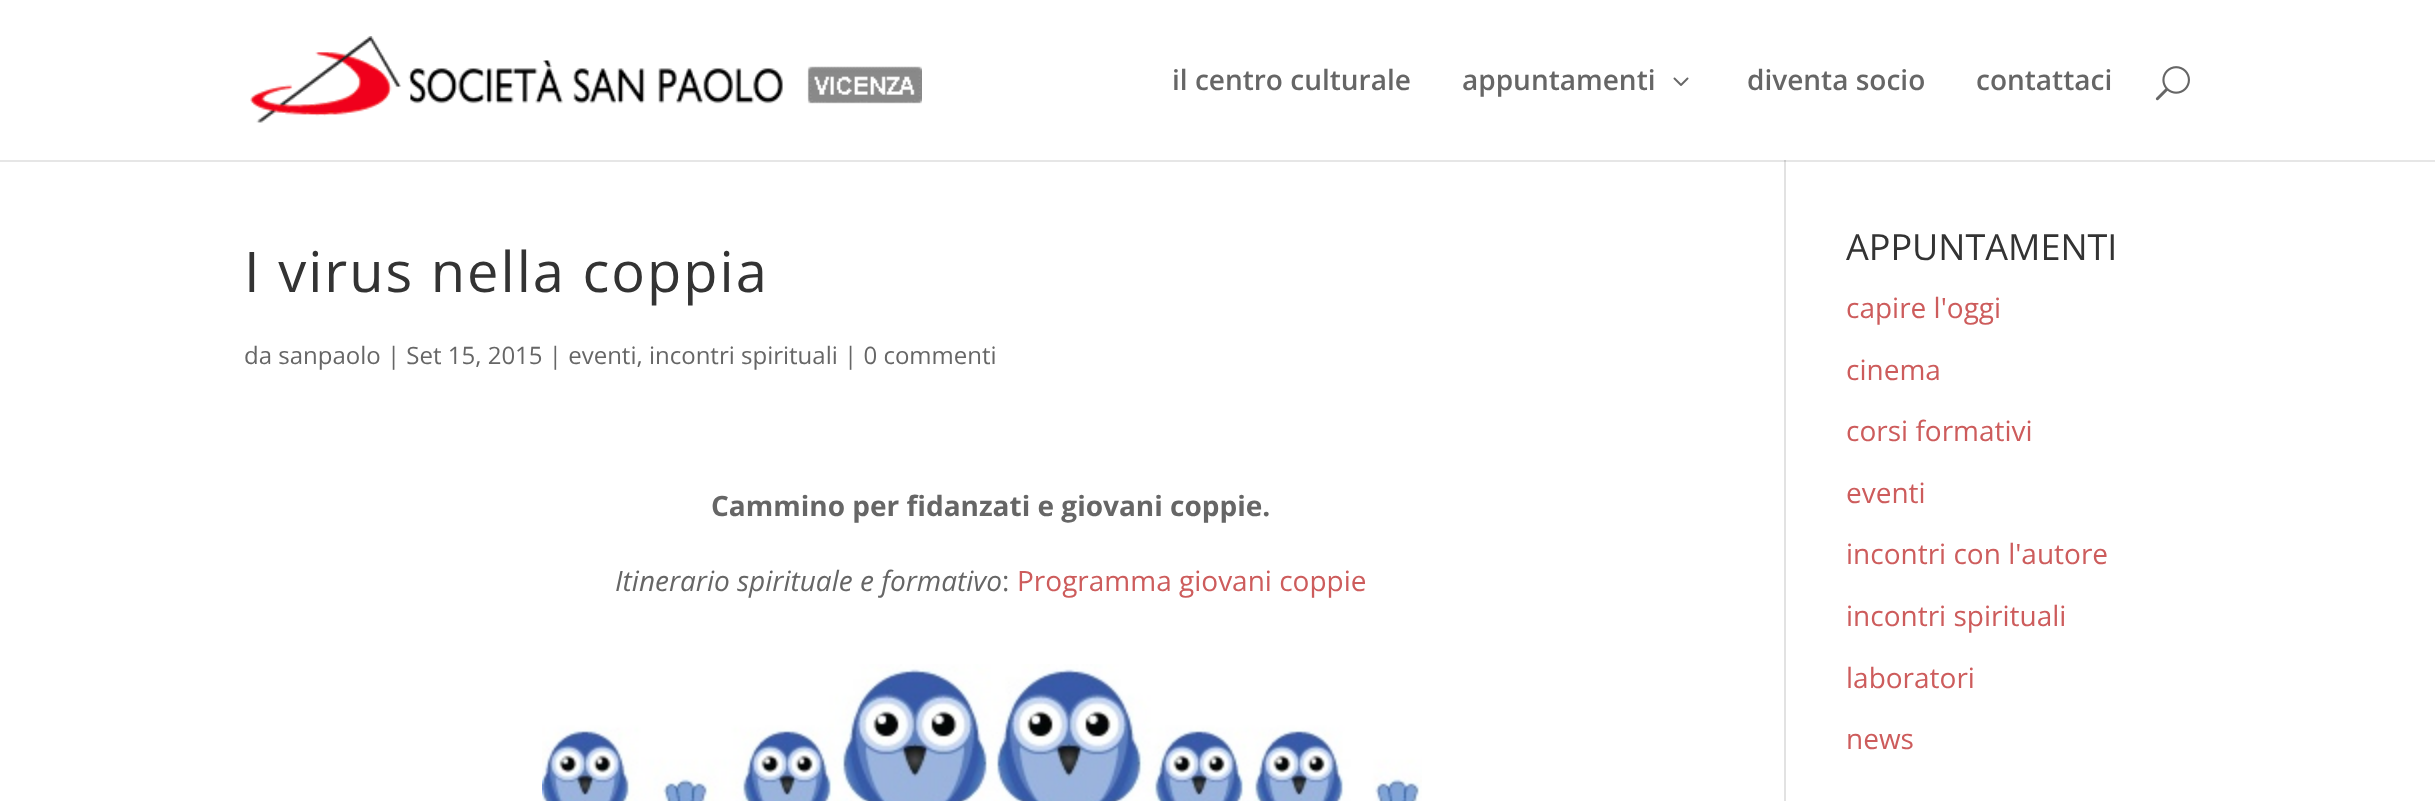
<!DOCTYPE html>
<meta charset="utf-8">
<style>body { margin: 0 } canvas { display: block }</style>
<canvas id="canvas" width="2435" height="801"></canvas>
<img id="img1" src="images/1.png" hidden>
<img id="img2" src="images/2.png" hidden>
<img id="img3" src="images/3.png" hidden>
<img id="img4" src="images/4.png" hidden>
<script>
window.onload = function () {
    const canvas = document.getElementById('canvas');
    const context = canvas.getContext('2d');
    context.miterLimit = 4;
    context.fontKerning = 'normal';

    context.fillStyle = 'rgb(255, 255, 255)';
    context.fillRect(0, 0, 2435, 801);
    context.fillStyle = 'rgb(230, 230, 230)';
    context.fillRect(0, 160, 2435, 2);
    context.drawImage(document.getElementById('img1'), 250, 36, 672, 87);
    context.drawImage(document.getElementById('img2'), 1673, 77, 16, 9);
    context.drawImage(document.getElementById('img3'), 2155, 66, 35, 35);
    context.fillStyle = 'rgb(226, 226, 226)';
    context.fillRect(1784, 162, 2, 639);
    context.fillStyle = 'rgb(203, 203, 203)';
    context.fillRect(1784, 160, 2, 2);
    context.drawImage(document.getElementById('img4'), 542, 664, 880, 137);
    context.font = '600 28px Open Sans';
    context.fillStyle = 'rgb(102, 102, 102)';
    context.fillText('il centro culturale', 1172, 90);
    context.fillText('appuntamenti', 1462, 90);
    context.fillText('diventa socio', 1747, 90);
    context.fillText('contattaci', 1976, 90);
    context.letterSpacing = '2px';
    context.font = '56px Open Sans';
    context.fillStyle = 'rgb(51, 51, 51)';
    context.fillText('I virus nella coppia', 244, 292);
    context.letterSpacing = '0px';
    context.font = '24px Open Sans';
    context.fillStyle = 'rgb(102, 102, 102)';
    context.fillText('da sanpaolo | Set 15, 2015 | eventi, incontri spirituali | 0 commenti', 244, 364);
    context.font = 'bold 28px Open Sans';
    context.fillText('Cammino per fidanzati e giovani coppie.', 711, 516);
    context.font = 'italic 28px Open Sans';
    context.fillText('Itinerario spirituale e formativo', 615, 591);
    context.font = '28px Open Sans';
    context.fillText(':', 1002, 591);
    context.fillStyle = 'rgb(205, 92, 92)';
    context.fillText('Programma giovani coppie', 1017, 591);
    context.font = '36px Open Sans';
    context.fillStyle = 'rgb(51, 51, 51)';
    context.fillText('APPUNTAMENTI', 1846, 260);
    context.font = '28px Open Sans';
    context.fillStyle = 'rgb(205, 92, 92)';
    context.fillText('capire l\'oggi', 1846, 318);
    context.fillText('cinema', 1846, 380);
    context.fillText('corsi formativi', 1846, 441);
    context.fillText('eventi', 1846, 503);
    context.fillText('incontri con l\'autore', 1846, 564);
    context.fillText('incontri spirituali', 1846, 626);
    context.fillText('laboratori', 1846, 688);
    context.fillText('news', 1846, 749);
};
</script>
